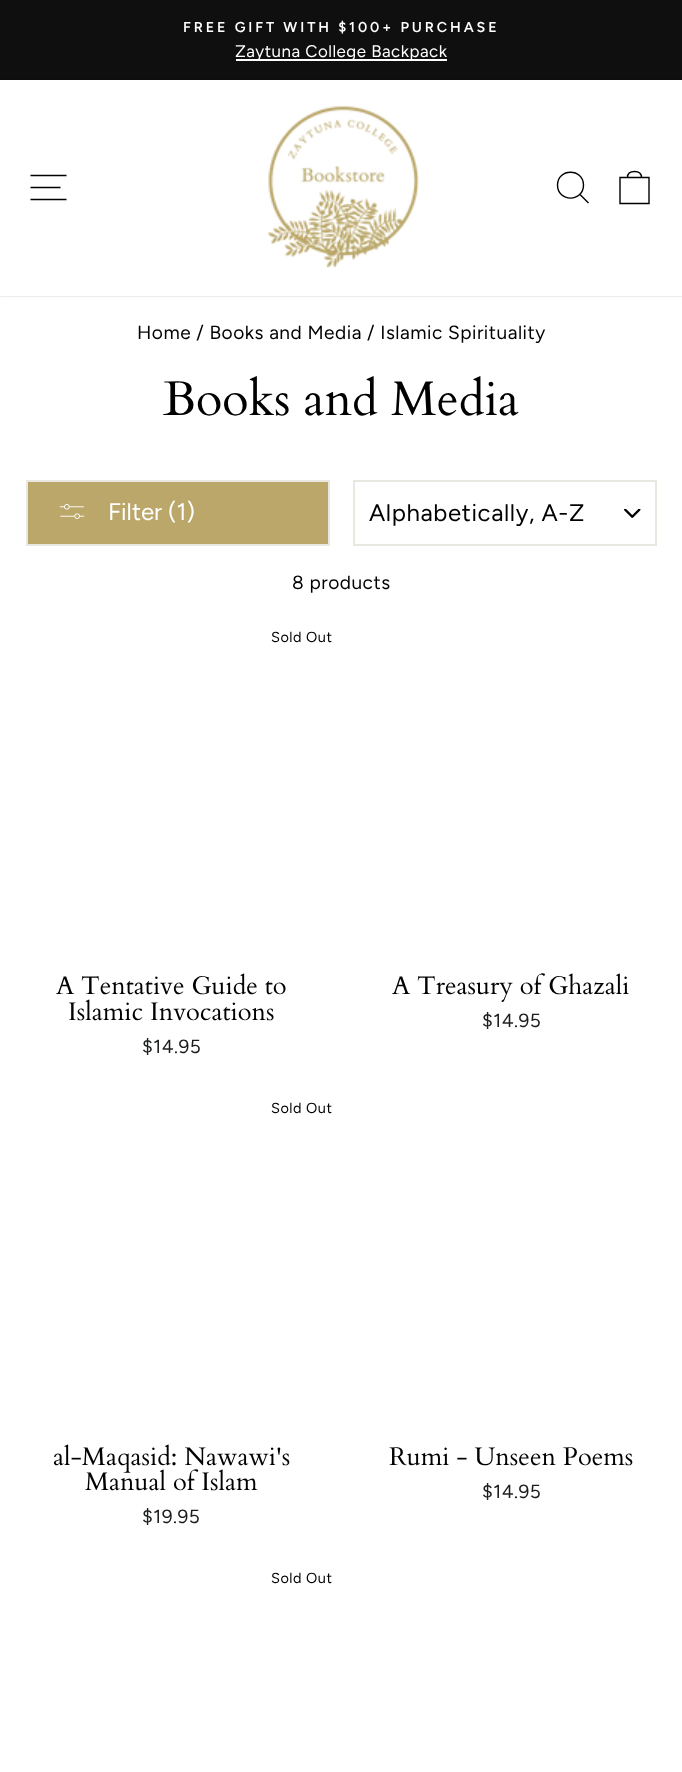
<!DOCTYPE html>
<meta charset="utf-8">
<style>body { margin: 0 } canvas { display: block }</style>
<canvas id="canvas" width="682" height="1772"></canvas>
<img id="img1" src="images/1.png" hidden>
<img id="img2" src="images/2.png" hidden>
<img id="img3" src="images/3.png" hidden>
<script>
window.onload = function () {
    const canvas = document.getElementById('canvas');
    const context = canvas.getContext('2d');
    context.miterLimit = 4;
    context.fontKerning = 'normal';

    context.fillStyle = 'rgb(255, 255, 255)';
    context.fillRect(0, 0, 682, 1772);
    context.fillStyle = 'rgb(15, 15, 15)';
    context.fillRect(0, 0, 682, 80);
    context.fillStyle = 'rgb(255, 255, 255)';
    context.fillRect(236, 59, 211, 2);
    context.fillStyle = 'rgba(0, 0, 0, 0.2)';
    context.filter = 'blur(1px)';
    context.beginPath();
    context.rect(0, 80, 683, 216);
    context.fill();
    context.filter = 'none';
    context.fillStyle = 'rgb(255, 255, 255)';
    context.fillRect(0, 80, 682, 216);
    context.beginPath();
    context.moveTo(30.5, 175.5);
    context.lineTo(66.5, 175.5);
    context.moveTo(30.5, 187.5);
    context.lineTo(60.5, 187.5);
    context.moveTo(30.5, 199.5);
    context.lineTo(66.5, 199.5);
    context.strokeStyle = 'rgb(0, 0, 0)';
    context.lineWidth = 1.4;
    context.stroke();
    context.drawImage(document.getElementById('img1'), 267, 106, 152, 162);
    context.beginPath();
    context.moveTo(583.5, 185);
    context.bezierCurveTo(583.5, 202.5, 557.5, 202.5, 557.5, 185);
    context.bezierCurveTo(557.5, 168, 583.5, 168, 583.5, 185);
    context.closePath();
    context.moveTo(588.5, 203);
    context.lineTo(580, 194.5);
    context.stroke();
    context.beginPath();
    context.moveTo(620, 177.5);
    context.lineTo(649, 177.5);
    context.lineTo(649, 203.5);
    context.lineTo(620, 203.5);
    context.closePath();
    context.moveTo(627.5, 177.5);
    context.bezierCurveTo(627.5, 172.5, 630.5, 171.5, 634.5, 171.5);
    context.bezierCurveTo(638.5, 171.5, 641.5, 172.5, 641.5, 177.5);
    context.stroke();
    context.fillStyle = 'rgb(186, 167, 105)';
    context.beginPath();
    context.rect(27, 481, 302, 64);
    context.fill();
    context.strokeStyle = 'rgb(232, 232, 225)';
    context.lineWidth = 2;
    context.stroke();
    context.drawImage(document.getElementById('img2'), 59, 504, 26, 15);
    context.drawImage(document.getElementById('img3'), 624, 509, 17, 9);
    context.strokeRect(354, 481, 302, 64);
    context.letterSpacing = '2.9px';
    context.font = '600 14.3px Figtree';
    context.fillStyle = 'rgb(255, 255, 255)';
    context.fillText('FREE GIFT WITH $100+ PURCHASE', 183, 32);
    context.letterSpacing = '0.5px';
    context.font = '16.9px Figtree';
    context.fillText('Zaytuna College Backpack', 235, 57);
    context.font = '19.1px Figtree';
    context.fillStyle = 'rgb(0, 0, 0)';
    context.fillText('Home / Books and Media / Islamic Spirituality', 137, 339);
    context.letterSpacing = '0px';
    context.font = '48.5px Cardo';
    context.fillText('Books and Media', 163, 415);
    context.font = '24px Figtree';
    context.fillStyle = 'rgb(255, 255, 255)';
    context.fillText('Filter (1)', 108, 520);
    context.letterSpacing = '0.6px';
    context.fillStyle = 'rgb(0, 0, 0)';
    context.fillText('Alphabetically, A-Z', 369, 521);
    context.letterSpacing = '0.5px';
    context.font = '19.1px Figtree';
    context.fillText('8 products', 292, 589);
    context.font = '14.5px Figtree';
    context.fillText('Sold Out', 271, 642);
    context.letterSpacing = '0px';
    context.font = '25.5px Cardo';
    context.fillText('A Tentative Guide to', 56, 994);
    context.fillText('Islamic Invocations', 68, 1020);
    context.letterSpacing = '0.5px';
    context.font = '19.1px Figtree';
    context.fillStyle = 'rgb(28, 29, 29)';
    context.fillText('$14.95', 142, 1053);
    context.letterSpacing = '0px';
    context.font = '25.5px Cardo';
    context.fillStyle = 'rgb(0, 0, 0)';
    context.fillText('A Treasury of Ghazali', 392, 994);
    context.letterSpacing = '0.5px';
    context.font = '19.1px Figtree';
    context.fillStyle = 'rgb(28, 29, 29)';
    context.fillText('$14.95', 482, 1027);
    context.font = '14.5px Figtree';
    context.fillStyle = 'rgb(0, 0, 0)';
    context.fillText('Sold Out', 271, 1113);
    context.letterSpacing = '0px';
    context.font = '25.5px Cardo';
    context.fillText('al-Maqasid: Nawawi\'s', 53, 1465);
    context.fillText('Manual of Islam', 85, 1490);
    context.letterSpacing = '0.5px';
    context.font = '19.1px Figtree';
    context.fillStyle = 'rgb(28, 29, 29)';
    context.fillText('$19.95', 142, 1523);
    context.letterSpacing = '0px';
    context.font = '25.5px Cardo';
    context.fillStyle = 'rgb(0, 0, 0)';
    context.fillText('Rumi - Unseen Poems', 389, 1465);
    context.letterSpacing = '0.5px';
    context.font = '19.1px Figtree';
    context.fillStyle = 'rgb(28, 29, 29)';
    context.fillText('$14.95', 482, 1498);
    context.font = '14.5px Figtree';
    context.fillStyle = 'rgb(0, 0, 0)';
    context.fillText('Sold Out', 271, 1583);
};
</script>
